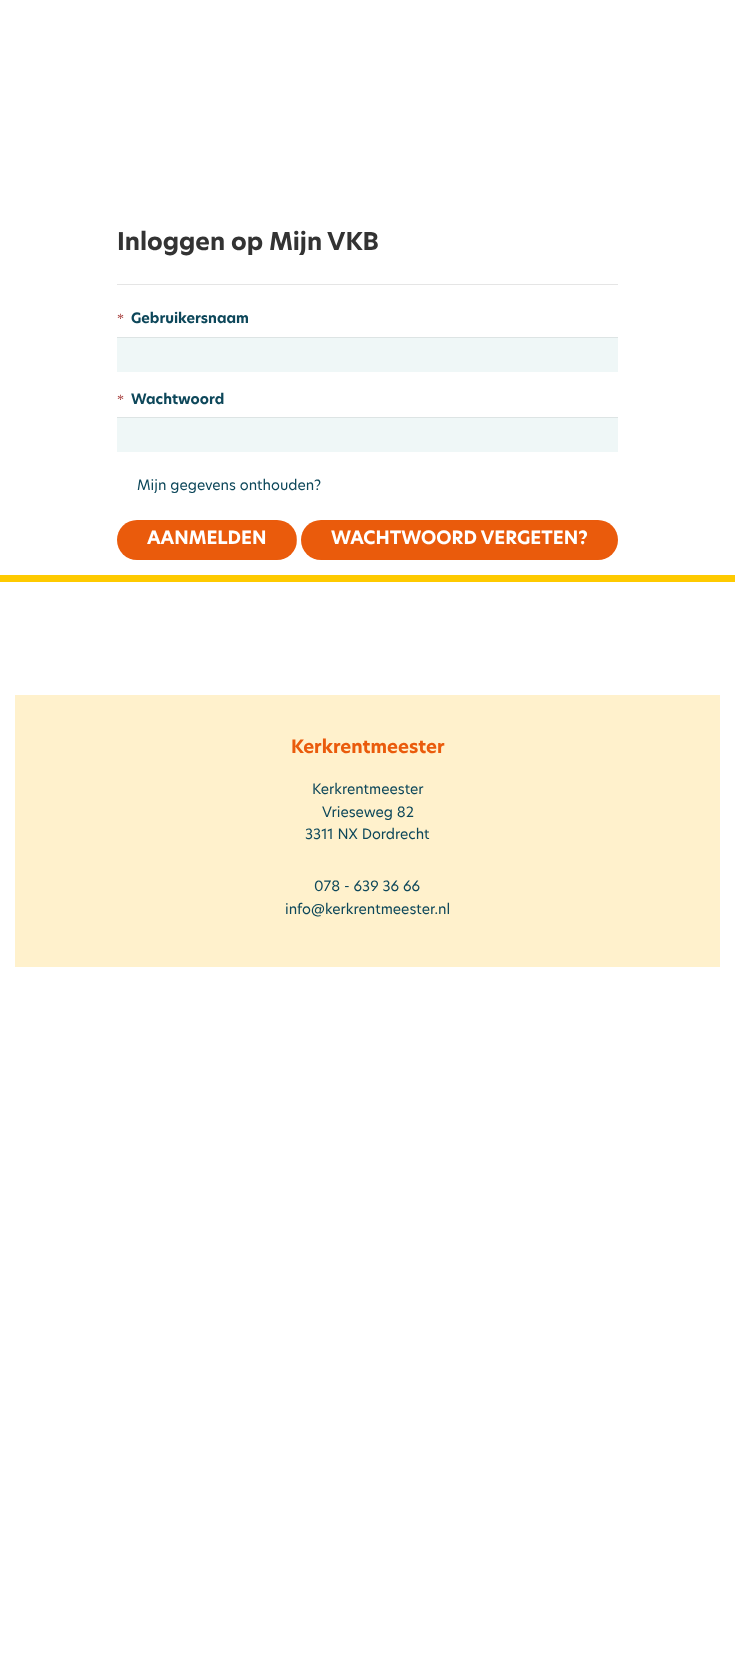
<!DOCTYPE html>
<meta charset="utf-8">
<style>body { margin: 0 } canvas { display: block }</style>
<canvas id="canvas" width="735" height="1668"></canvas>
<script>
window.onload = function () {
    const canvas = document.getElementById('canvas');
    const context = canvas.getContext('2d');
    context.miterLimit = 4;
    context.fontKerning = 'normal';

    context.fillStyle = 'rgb(255, 255, 255)';
    context.fillRect(0, 0, 735, 1668);
    context.fillStyle = 'rgb(229, 229, 229)';
    context.fillRect(117, 284, 501, 1);
    context.fillStyle = 'rgb(239, 247, 247)';
    context.fillRect(117, 338, 501, 34);
    context.fillStyle = 'rgb(221, 228, 228)';
    context.fillRect(117, 337, 501, 1);
    context.fillStyle = 'rgb(239, 247, 247)';
    context.fillRect(117, 418, 501, 34);
    context.fillStyle = 'rgb(221, 228, 228)';
    context.fillRect(117, 417, 501, 1);
    context.fillStyle = 'rgb(234, 91, 12)';
    context.beginPath();
    context.roundRect(117, 520, 180, 40, 20);
    context.fill();
    context.save();
    context.beginPath();
    context.roundRect(117, 520, 180, 40, 20);
    context.clip();
    context.fillStyle = 'rgba(255, 255, 255, 0.2)';
    context.beginPath();
    context.roundRect(296, 520, 1, 40, [20, 0, 0, 20]);
    context.fill();
    context.restore();
    context.beginPath();
    context.roundRect(301, 520, 317, 40, 20);
    context.fill();
    context.fillStyle = 'rgb(254, 202, 0)';
    context.fillRect(0, 575, 735, 7);
    context.fillStyle = 'rgb(255, 241, 204)';
    context.fillRect(15, 695, 705, 272);
    context.font = 'bold 24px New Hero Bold';
    context.fillStyle = 'rgb(51, 51, 51)';
    context.fillText('Inloggen op Mijn VKB', 117, 250);
    context.font = '14px Liberation Serif';
    context.fillStyle = 'rgb(169, 68, 66)';
    context.fillText('*', 117, 323);
    context.font = 'bold 14px New Hero Bold';
    context.fillStyle = 'rgb(13, 71, 90)';
    context.fillText('Gebruikersnaam', 131, 323);
    context.font = '14px Liberation Serif';
    context.fillStyle = 'rgb(169, 68, 66)';
    context.fillText('*', 117, 404);
    context.font = 'bold 14px New Hero Bold';
    context.fillStyle = 'rgb(13, 71, 90)';
    context.fillText('Wachtwoord', 131, 404);
    context.font = '14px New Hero';
    context.fillText('Mijn gegevens onthouden?', 137, 490);
    context.font = 'bold 18px New Hero Bold';
    context.fillStyle = 'rgb(255, 255, 255)';
    context.fillText('AANMELDEN', 147, 544);
    context.fillText('WACHTWOORD VERGETEN?', 331, 544);
    context.fillStyle = 'rgb(234, 91, 12)';
    context.fillText('Kerkrentmeester', 291, 753);
    context.font = '14px New Hero';
    context.fillStyle = 'rgb(13, 71, 90)';
    context.fillText('Kerkrentmeester', 312, 794);
    context.fillText('Vrieseweg 82', 322, 817);
    context.fillText('3311 NX Dordrecht', 305, 839);
    context.fillText('078 - 639 36 66', 314, 891);
    context.fillText('info@kerkrentmeester.nl', 285, 914);
};
</script>
